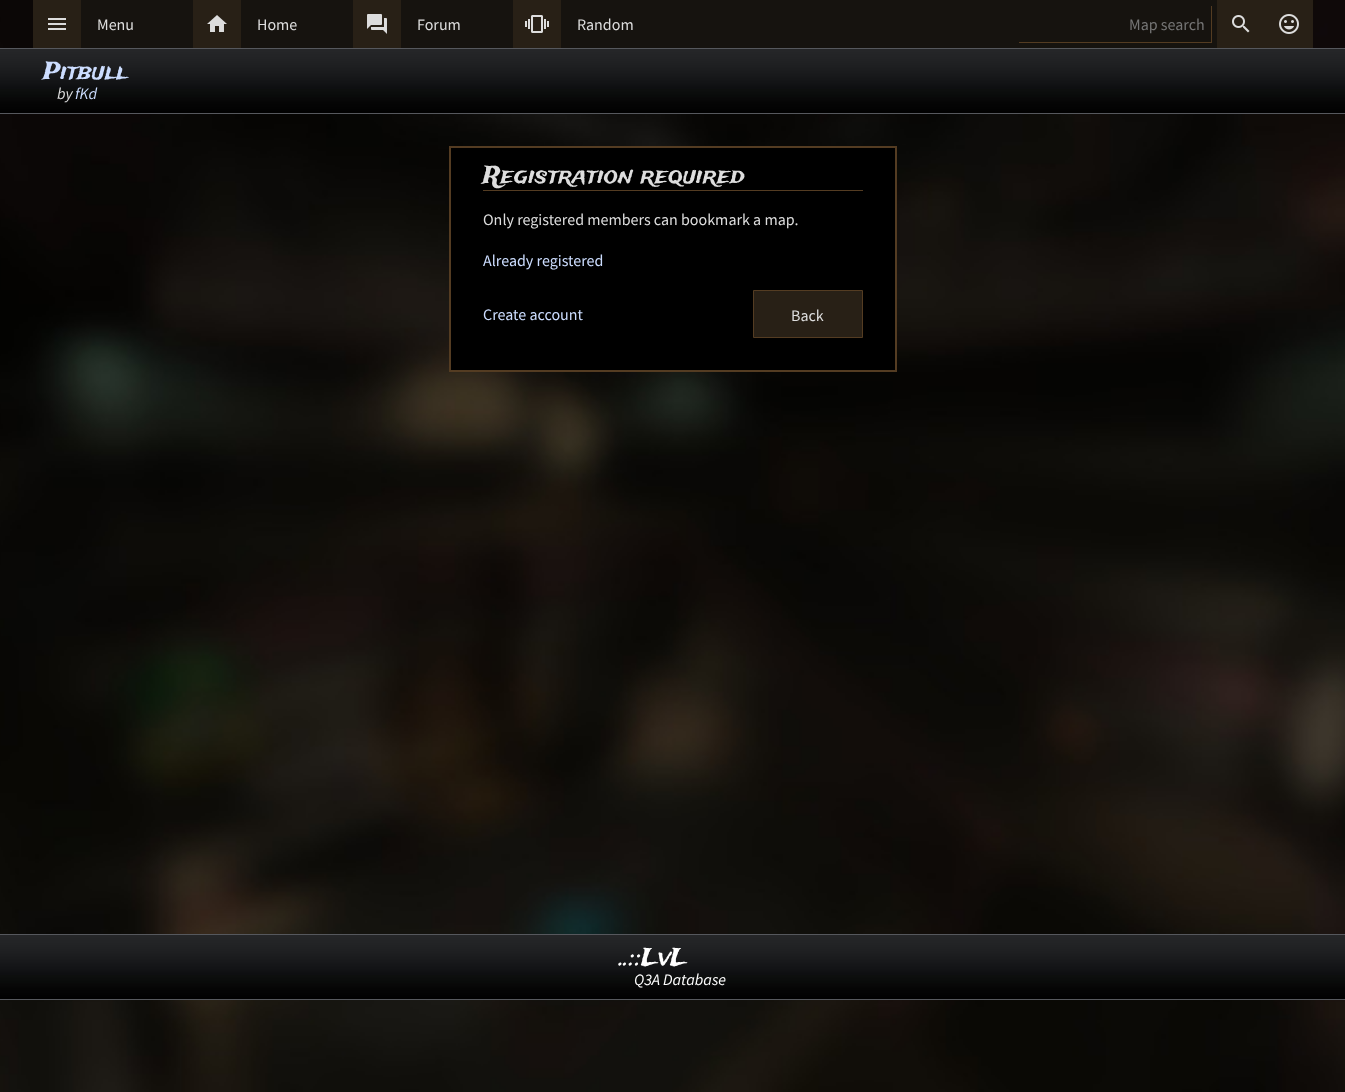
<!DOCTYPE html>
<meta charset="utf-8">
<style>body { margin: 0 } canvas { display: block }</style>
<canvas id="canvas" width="1345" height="1092"></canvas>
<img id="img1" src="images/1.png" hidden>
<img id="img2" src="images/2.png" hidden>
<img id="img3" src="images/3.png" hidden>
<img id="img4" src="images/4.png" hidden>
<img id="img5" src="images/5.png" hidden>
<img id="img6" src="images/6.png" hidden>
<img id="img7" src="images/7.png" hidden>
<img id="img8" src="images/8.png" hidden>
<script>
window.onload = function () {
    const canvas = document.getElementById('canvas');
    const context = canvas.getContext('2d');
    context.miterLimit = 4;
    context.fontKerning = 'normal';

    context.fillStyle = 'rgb(255, 255, 255)';
    context.fillRect(0, 0, 1345, 1092);
    context.drawImage(document.getElementById('img1'), 0, 0, 1345, 1092);
    context.fillStyle = 'rgb(22, 19, 15)';
    context.fillRect(81, 0, 1136, 48);
    context.fillStyle = 'rgb(40, 32, 22)';
    context.fillRect(33, 0, 48, 48);
    context.drawImage(document.getElementById('img2'), 48, 18, 18, 12);
    context.fillRect(193, 0, 48, 48);
    context.drawImage(document.getElementById('img3'), 207, 15, 20, 17);
    context.fillRect(353, 0, 48, 48);
    context.drawImage(document.getElementById('img4'), 367, 14, 20, 20);
    context.fillRect(513, 0, 48, 48);
    context.drawImage(document.getElementById('img5'), 525, 15, 24, 18);
    context.fillStyle = 'rgb(84, 60, 34)';
    context.fillRect(1211, 6, 1, 37);
    context.fillRect(1019, 42, 193, 1);
    context.fillStyle = 'rgb(40, 32, 22)';
    context.fillRect(1217, 0, 96, 48);
    context.drawImage(document.getElementById('img6'), 1232, 15, 18, 18);
    context.drawImage(document.getElementById('img7'), 1279, 14, 20, 20);
    context.drawImage(document.getElementById('img8'), 0, 49, 1345, 64);
    context.fillStyle = 'rgb(86, 88, 93)';
    context.fillRect(0, 48, 1345, 1);
    context.fillRect(0, 113, 1345, 1);
    context.fillStyle = 'rgb(0, 0, 0)';
    context.beginPath();
    context.rect(450, 147, 446, 224);
    context.fill();
    context.strokeStyle = 'rgb(84, 60, 34)';
    context.lineWidth = 2;
    context.stroke();
    context.fillStyle = 'rgb(84, 60, 34)';
    context.fillRect(483, 190, 380, 1);
    context.fillStyle = 'rgb(40, 32, 22)';
    context.beginPath();
    context.rect(753.5, 290.5, 109, 47);
    context.fill();
    context.lineWidth = 1;
    context.stroke();
    context.drawImage(document.getElementById('img8'), 0, 935, 1345, 64);
    context.fillStyle = 'rgb(86, 88, 93)';
    context.fillRect(0, 934, 1345, 1);
    context.fillRect(0, 999, 1345, 1);
    context.font = '16px Source Sans Pro';
    context.fillStyle = 'rgb(221, 221, 221)';
    context.fillText('Menu', 97, 30);
    context.fillText('Home', 257, 30);
    context.fillText('Forum', 417, 30);
    context.fillText('Random', 577, 30);
    context.fillStyle = 'rgb(117, 117, 117)';
    context.fillText('Map search', 1129, 30);
    context.font = '24px Trade Winds';
    context.fillStyle = 'rgb(204, 221, 255)';
    context.fillText('Pitbull', 43, 79);
    context.font = 'italic 16px Source Sans Pro';
    context.fillStyle = 'rgb(221, 221, 221)';
    context.fillText('by', 57, 99);
    context.fillStyle = 'rgb(204, 221, 255)';
    context.fillText('fKd', 75, 99);
    context.font = '24px Trade Winds';
    context.fillStyle = 'rgb(221, 221, 221)';
    context.fillText('Registration required', 483, 183);
    context.font = '16px Source Sans Pro';
    context.fillText('Only registered members can bookmark a map.', 483, 225);
    context.fillStyle = 'rgb(204, 221, 255)';
    context.fillText('Already registered', 483, 266);
    context.fillText('Create account', 483, 320);
    context.fillStyle = 'rgb(221, 221, 221)';
    context.fillText('Back', 791, 321);
    context.font = '24px Trade Winds';
    context.fillStyle = 'rgb(255, 255, 255)';
    context.fillText('..::LvL', 620, 965);
    context.font = 'italic 16px Source Sans Pro';
    context.fillText('Q3A Database', 634, 985);
};
</script>
